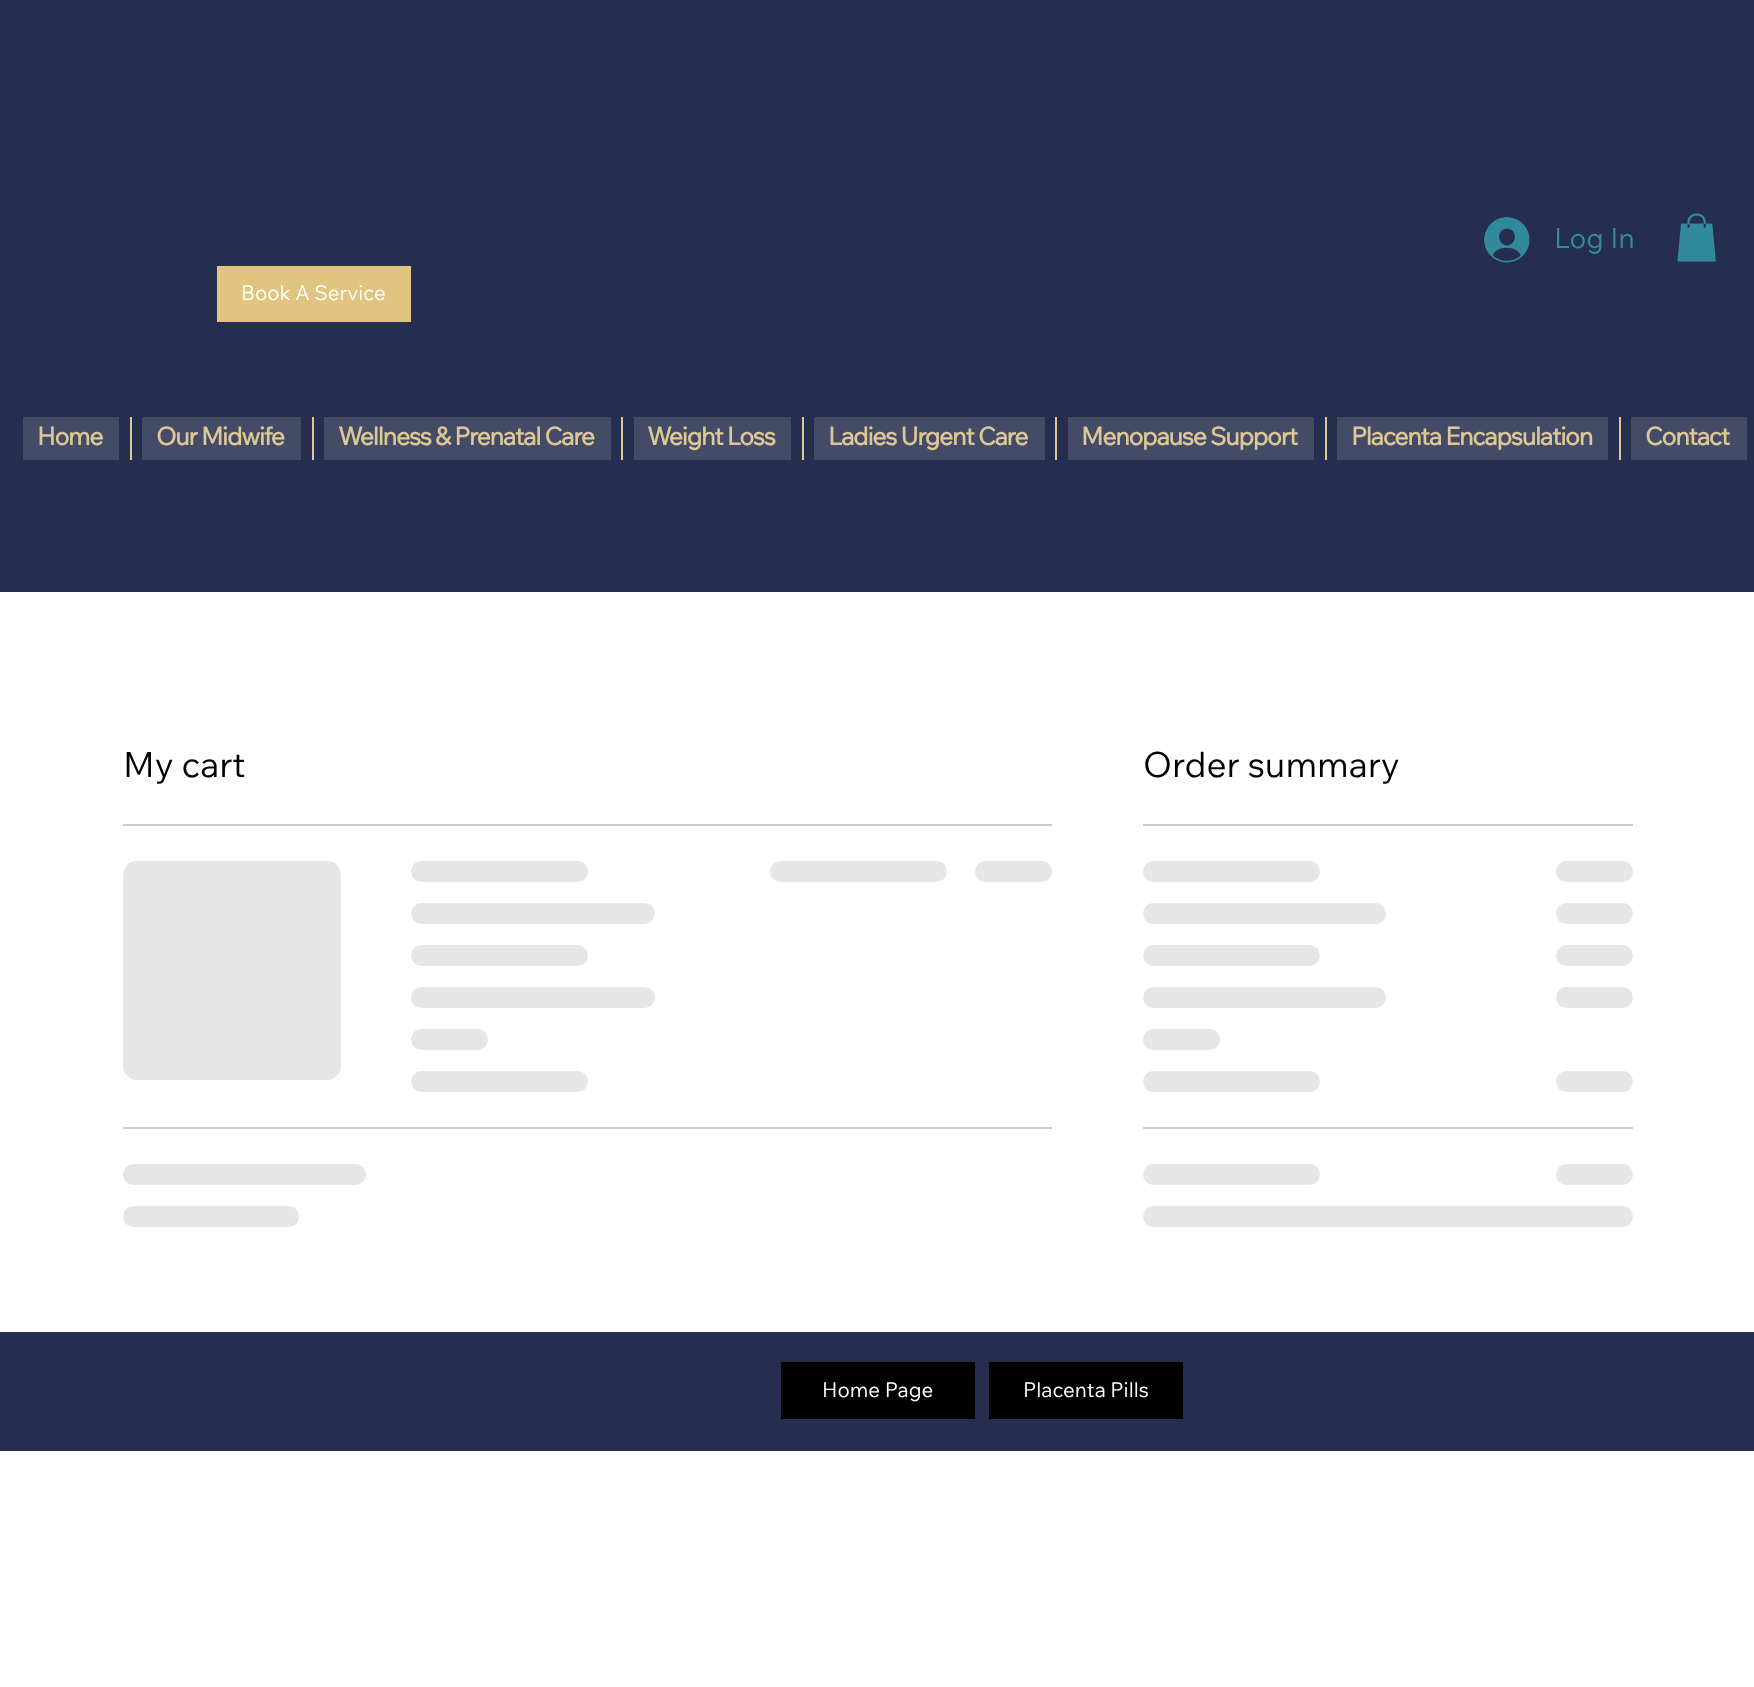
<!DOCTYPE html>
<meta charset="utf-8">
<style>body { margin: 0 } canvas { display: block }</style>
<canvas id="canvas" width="1754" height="1687"></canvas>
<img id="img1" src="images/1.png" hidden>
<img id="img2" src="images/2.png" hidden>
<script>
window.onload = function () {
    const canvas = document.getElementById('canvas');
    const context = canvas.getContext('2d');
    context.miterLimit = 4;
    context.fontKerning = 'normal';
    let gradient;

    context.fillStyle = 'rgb(255, 255, 255)';
    context.fillRect(0, 0, 1754, 1687);
    context.fillStyle = 'rgb(37, 46, 78)';
    context.fillRect(0, 0, 1754, 592);
    context.drawImage(document.getElementById('img1'), 1484, 217, 46, 46);
    context.drawImage(document.getElementById('img2'), 1677, 213, 39, 49);
    context.fillStyle = 'rgb(225, 196, 127)';
    context.fillRect(217, 266, 194, 56);
    context.fillStyle = 'rgb(68, 75, 103)';
    context.fillRect(23, 417, 96, 43);
    context.fillStyle = 'rgb(220, 199, 149)';
    context.fillRect(130, 417, 2, 43);
    context.fillStyle = 'rgb(68, 75, 103)';
    context.fillRect(142, 417, 159, 43);
    context.fillStyle = 'rgb(220, 199, 149)';
    context.fillRect(312, 417, 2, 43);
    context.fillStyle = 'rgb(68, 75, 103)';
    context.fillRect(324, 417, 287, 43);
    context.fillStyle = 'rgb(220, 199, 149)';
    context.fillRect(621, 417, 2, 43);
    context.fillStyle = 'rgb(68, 75, 103)';
    context.fillRect(634, 417, 157, 43);
    context.fillStyle = 'rgb(220, 199, 149)';
    context.fillRect(802, 417, 2, 43);
    context.fillStyle = 'rgb(68, 75, 103)';
    context.fillRect(814, 417, 231, 43);
    context.fillStyle = 'rgb(220, 199, 149)';
    context.fillRect(1055, 417, 2, 43);
    context.fillStyle = 'rgb(68, 75, 103)';
    context.fillRect(1068, 417, 246, 43);
    context.fillStyle = 'rgb(220, 199, 149)';
    context.fillRect(1325, 417, 2, 43);
    context.fillStyle = 'rgb(68, 75, 103)';
    context.fillRect(1337, 417, 271, 43);
    context.fillStyle = 'rgb(220, 199, 149)';
    context.fillRect(1619, 417, 2, 43);
    context.fillStyle = 'rgb(68, 75, 103)';
    context.fillRect(1631, 417, 116, 43);
    context.fillStyle = 'rgb(204, 204, 204)';
    context.fillRect(123, 824, 929, 2);
    gradient = context.createLinearGradient(123, 970, 998, 970);
    gradient.addColorStop(0.25, 'rgb(230, 230, 230)');
    gradient.addColorStop(0.37, 'rgb(204, 204, 204)');
    gradient.addColorStop(0.63, 'rgb(230, 230, 230)');
    context.fillStyle = gradient;
    context.beginPath();
    context.roundRect(123, 861, 218, 219, 14);
    context.fill();
    gradient = context.createLinearGradient(411, 872, 1118, 872);
    gradient.addColorStop(0.25, 'rgb(230, 230, 230)');
    gradient.addColorStop(0.37, 'rgb(204, 204, 204)');
    gradient.addColorStop(0.63, 'rgb(230, 230, 230)');
    context.fillStyle = gradient;
    context.beginPath();
    context.roundRect(411, 861, 177, 21, 10.5);
    context.fill();
    gradient = context.createLinearGradient(411, 914, 1384, 914);
    gradient.addColorStop(0.25, 'rgb(230, 230, 230)');
    gradient.addColorStop(0.37, 'rgb(204, 204, 204)');
    gradient.addColorStop(0.63, 'rgb(230, 230, 230)');
    context.fillStyle = gradient;
    context.beginPath();
    context.roundRect(411, 903, 244, 21, 10.5);
    context.fill();
    gradient = context.createLinearGradient(411, 956, 1118, 956);
    gradient.addColorStop(0.25, 'rgb(230, 230, 230)');
    gradient.addColorStop(0.37, 'rgb(204, 204, 204)');
    gradient.addColorStop(0.63, 'rgb(230, 230, 230)');
    context.fillStyle = gradient;
    context.beginPath();
    context.roundRect(411, 945, 177, 21, 10.5);
    context.fill();
    gradient = context.createLinearGradient(411, 998, 1384, 998);
    gradient.addColorStop(0.25, 'rgb(230, 230, 230)');
    gradient.addColorStop(0.37, 'rgb(204, 204, 204)');
    gradient.addColorStop(0.63, 'rgb(230, 230, 230)');
    context.fillStyle = gradient;
    context.beginPath();
    context.roundRect(411, 987, 244, 21, 10.5);
    context.fill();
    gradient = context.createLinearGradient(411, 1040, 719, 1040);
    gradient.addColorStop(0.25, 'rgb(230, 230, 230)');
    gradient.addColorStop(0.37, 'rgb(204, 204, 204)');
    gradient.addColorStop(0.63, 'rgb(230, 230, 230)');
    context.fillStyle = gradient;
    context.beginPath();
    context.roundRect(411, 1029, 77, 21, 10.5);
    context.fill();
    gradient = context.createLinearGradient(411, 1082, 1118, 1082);
    gradient.addColorStop(0.25, 'rgb(230, 230, 230)');
    gradient.addColorStop(0.37, 'rgb(204, 204, 204)');
    gradient.addColorStop(0.63, 'rgb(230, 230, 230)');
    context.fillStyle = gradient;
    context.beginPath();
    context.roundRect(411, 1071, 177, 21, 10.5);
    context.fill();
    gradient = context.createLinearGradient(770, 872, 1477, 872);
    gradient.addColorStop(0.25, 'rgb(230, 230, 230)');
    gradient.addColorStop(0.37, 'rgb(204, 204, 204)');
    gradient.addColorStop(0.63, 'rgb(230, 230, 230)');
    context.fillStyle = gradient;
    context.beginPath();
    context.roundRect(770, 861, 177, 21, 10.5);
    context.fill();
    gradient = context.createLinearGradient(975, 872, 1283, 872);
    gradient.addColorStop(0.25, 'rgb(230, 230, 230)');
    gradient.addColorStop(0.37, 'rgb(204, 204, 204)');
    gradient.addColorStop(0.63, 'rgb(230, 230, 230)');
    context.fillStyle = gradient;
    context.beginPath();
    context.roundRect(975, 861, 77, 21, 10.5);
    context.fill();
    context.fillStyle = 'rgb(204, 204, 204)';
    context.fillRect(123, 1127, 929, 2);
    gradient = context.createLinearGradient(123, 1174, 1096, 1174);
    gradient.addColorStop(0.25, 'rgb(230, 230, 230)');
    gradient.addColorStop(0.37, 'rgb(204, 204, 204)');
    gradient.addColorStop(0.63, 'rgb(230, 230, 230)');
    context.fillStyle = gradient;
    context.beginPath();
    context.roundRect(123, 1164, 243, 21, 10.5);
    context.fill();
    gradient = context.createLinearGradient(123, 1216, 830, 1216);
    gradient.addColorStop(0.25, 'rgb(230, 230, 230)');
    gradient.addColorStop(0.37, 'rgb(204, 204, 204)');
    gradient.addColorStop(0.63, 'rgb(230, 230, 230)');
    context.fillStyle = gradient;
    context.beginPath();
    context.roundRect(123, 1206, 176, 21, 10.5);
    context.fill();
    context.fillStyle = 'rgb(204, 204, 204)';
    context.fillRect(1143, 824, 490, 2);
    gradient = context.createLinearGradient(1143, 872, 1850, 872);
    gradient.addColorStop(0.25, 'rgb(230, 230, 230)');
    gradient.addColorStop(0.37, 'rgb(204, 204, 204)');
    gradient.addColorStop(0.63, 'rgb(230, 230, 230)');
    context.fillStyle = gradient;
    context.beginPath();
    context.roundRect(1143, 861, 177, 21, 10.5);
    context.fill();
    gradient = context.createLinearGradient(1556, 872, 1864, 872);
    gradient.addColorStop(0.25, 'rgb(230, 230, 230)');
    gradient.addColorStop(0.37, 'rgb(204, 204, 204)');
    gradient.addColorStop(0.63, 'rgb(230, 230, 230)');
    context.fillStyle = gradient;
    context.beginPath();
    context.roundRect(1556, 861, 77, 21, 10.5);
    context.fill();
    gradient = context.createLinearGradient(1143, 914, 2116, 914);
    gradient.addColorStop(0.25, 'rgb(230, 230, 230)');
    gradient.addColorStop(0.37, 'rgb(204, 204, 204)');
    gradient.addColorStop(0.63, 'rgb(230, 230, 230)');
    context.fillStyle = gradient;
    context.beginPath();
    context.roundRect(1143, 903, 243, 21, 10.5);
    context.fill();
    gradient = context.createLinearGradient(1556, 914, 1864, 914);
    gradient.addColorStop(0.25, 'rgb(230, 230, 230)');
    gradient.addColorStop(0.37, 'rgb(204, 204, 204)');
    gradient.addColorStop(0.63, 'rgb(230, 230, 230)');
    context.fillStyle = gradient;
    context.beginPath();
    context.roundRect(1556, 903, 77, 21, 10.5);
    context.fill();
    gradient = context.createLinearGradient(1143, 956, 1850, 956);
    gradient.addColorStop(0.25, 'rgb(230, 230, 230)');
    gradient.addColorStop(0.37, 'rgb(204, 204, 204)');
    gradient.addColorStop(0.63, 'rgb(230, 230, 230)');
    context.fillStyle = gradient;
    context.beginPath();
    context.roundRect(1143, 945, 177, 21, 10.5);
    context.fill();
    gradient = context.createLinearGradient(1556, 956, 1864, 956);
    gradient.addColorStop(0.25, 'rgb(230, 230, 230)');
    gradient.addColorStop(0.37, 'rgb(204, 204, 204)');
    gradient.addColorStop(0.63, 'rgb(230, 230, 230)');
    context.fillStyle = gradient;
    context.beginPath();
    context.roundRect(1556, 945, 77, 21, 10.5);
    context.fill();
    gradient = context.createLinearGradient(1143, 998, 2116, 998);
    gradient.addColorStop(0.25, 'rgb(230, 230, 230)');
    gradient.addColorStop(0.37, 'rgb(204, 204, 204)');
    gradient.addColorStop(0.63, 'rgb(230, 230, 230)');
    context.fillStyle = gradient;
    context.beginPath();
    context.roundRect(1143, 987, 243, 21, 10.5);
    context.fill();
    gradient = context.createLinearGradient(1556, 998, 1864, 998);
    gradient.addColorStop(0.25, 'rgb(230, 230, 230)');
    gradient.addColorStop(0.37, 'rgb(204, 204, 204)');
    gradient.addColorStop(0.63, 'rgb(230, 230, 230)');
    context.fillStyle = gradient;
    context.beginPath();
    context.roundRect(1556, 987, 77, 21, 10.5);
    context.fill();
    gradient = context.createLinearGradient(1143, 1040, 1451, 1040);
    gradient.addColorStop(0.25, 'rgb(230, 230, 230)');
    gradient.addColorStop(0.37, 'rgb(204, 204, 204)');
    gradient.addColorStop(0.63, 'rgb(230, 230, 230)');
    context.fillStyle = gradient;
    context.beginPath();
    context.roundRect(1143, 1029, 77, 21, 10.5);
    context.fill();
    gradient = context.createLinearGradient(1143, 1082, 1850, 1082);
    gradient.addColorStop(0.25, 'rgb(230, 230, 230)');
    gradient.addColorStop(0.37, 'rgb(204, 204, 204)');
    gradient.addColorStop(0.63, 'rgb(230, 230, 230)');
    context.fillStyle = gradient;
    context.beginPath();
    context.roundRect(1143, 1071, 177, 21, 10.5);
    context.fill();
    gradient = context.createLinearGradient(1556, 1082, 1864, 1082);
    gradient.addColorStop(0.25, 'rgb(230, 230, 230)');
    gradient.addColorStop(0.37, 'rgb(204, 204, 204)');
    gradient.addColorStop(0.63, 'rgb(230, 230, 230)');
    context.fillStyle = gradient;
    context.beginPath();
    context.roundRect(1556, 1071, 77, 21, 10.5);
    context.fill();
    context.fillStyle = 'rgb(204, 204, 204)';
    context.fillRect(1143, 1127, 490, 2);
    gradient = context.createLinearGradient(1143, 1174, 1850, 1174);
    gradient.addColorStop(0.25, 'rgb(230, 230, 230)');
    gradient.addColorStop(0.37, 'rgb(204, 204, 204)');
    gradient.addColorStop(0.63, 'rgb(230, 230, 230)');
    context.fillStyle = gradient;
    context.beginPath();
    context.roundRect(1143, 1164, 177, 21, 10.5);
    context.fill();
    gradient = context.createLinearGradient(1556, 1174, 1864, 1174);
    gradient.addColorStop(0.25, 'rgb(230, 230, 230)');
    gradient.addColorStop(0.37, 'rgb(204, 204, 204)');
    gradient.addColorStop(0.63, 'rgb(230, 230, 230)');
    context.fillStyle = gradient;
    context.beginPath();
    context.roundRect(1556, 1164, 77, 21, 10.5);
    context.fill();
    gradient = context.createLinearGradient(1143, 1216, 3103, 1216);
    gradient.addColorStop(0.25, 'rgb(230, 230, 230)');
    gradient.addColorStop(0.37, 'rgb(204, 204, 204)');
    gradient.addColorStop(0.63, 'rgb(230, 230, 230)');
    context.fillStyle = gradient;
    context.beginPath();
    context.roundRect(1143, 1206, 490, 21, 10.5);
    context.fill();
    context.fillStyle = 'rgb(37, 46, 78)';
    context.fillRect(0, 1332, 1754, 119);
    context.fillStyle = 'rgb(0, 0, 0)';
    context.fillRect(781, 1362, 194, 57);
    context.fillRect(989, 1362, 194, 57);
    context.font = '28px Wix Madefor Text';
    context.fillStyle = 'rgb(49, 137, 156)';
    context.fillText('Log In', 1554, 248);
    context.font = '20.5px Wix Madefor Text';
    context.fillStyle = 'rgb(255, 255, 255)';
    context.fillText('Book A Service', 241, 300);
    context.letterSpacing = '-1.25px';
    context.font = 'bold 24.75px Wix Madefor Text';
    context.fillStyle = 'rgb(220, 199, 149)';
    context.fillText('Home', 37, 445);
    context.fillText('Our Midwife', 156, 445);
    context.fillText('Wellness & Prenatal Care', 338, 445);
    context.fillText('Weight Loss', 647, 445);
    context.fillText('Ladies Urgent Care', 828, 445);
    context.fillText('Menopause Support', 1081, 445);
    context.fillText('Placenta Encapsulation', 1351, 445);
    context.fillText('Contact', 1645, 445);
    context.letterSpacing = '0px';
    context.font = '35px Wix Madefor Text';
    context.fillStyle = 'rgb(0, 0, 0)';
    context.fillText('My cart', 123, 777);
    context.fillText('Order summary', 1143, 777);
    context.font = '20.5px Wix Madefor Text';
    context.fillStyle = 'rgb(255, 255, 255)';
    context.fillText('Home Page', 822, 1397);
    context.fillText('Placenta Pills', 1023, 1397);
};
</script>
